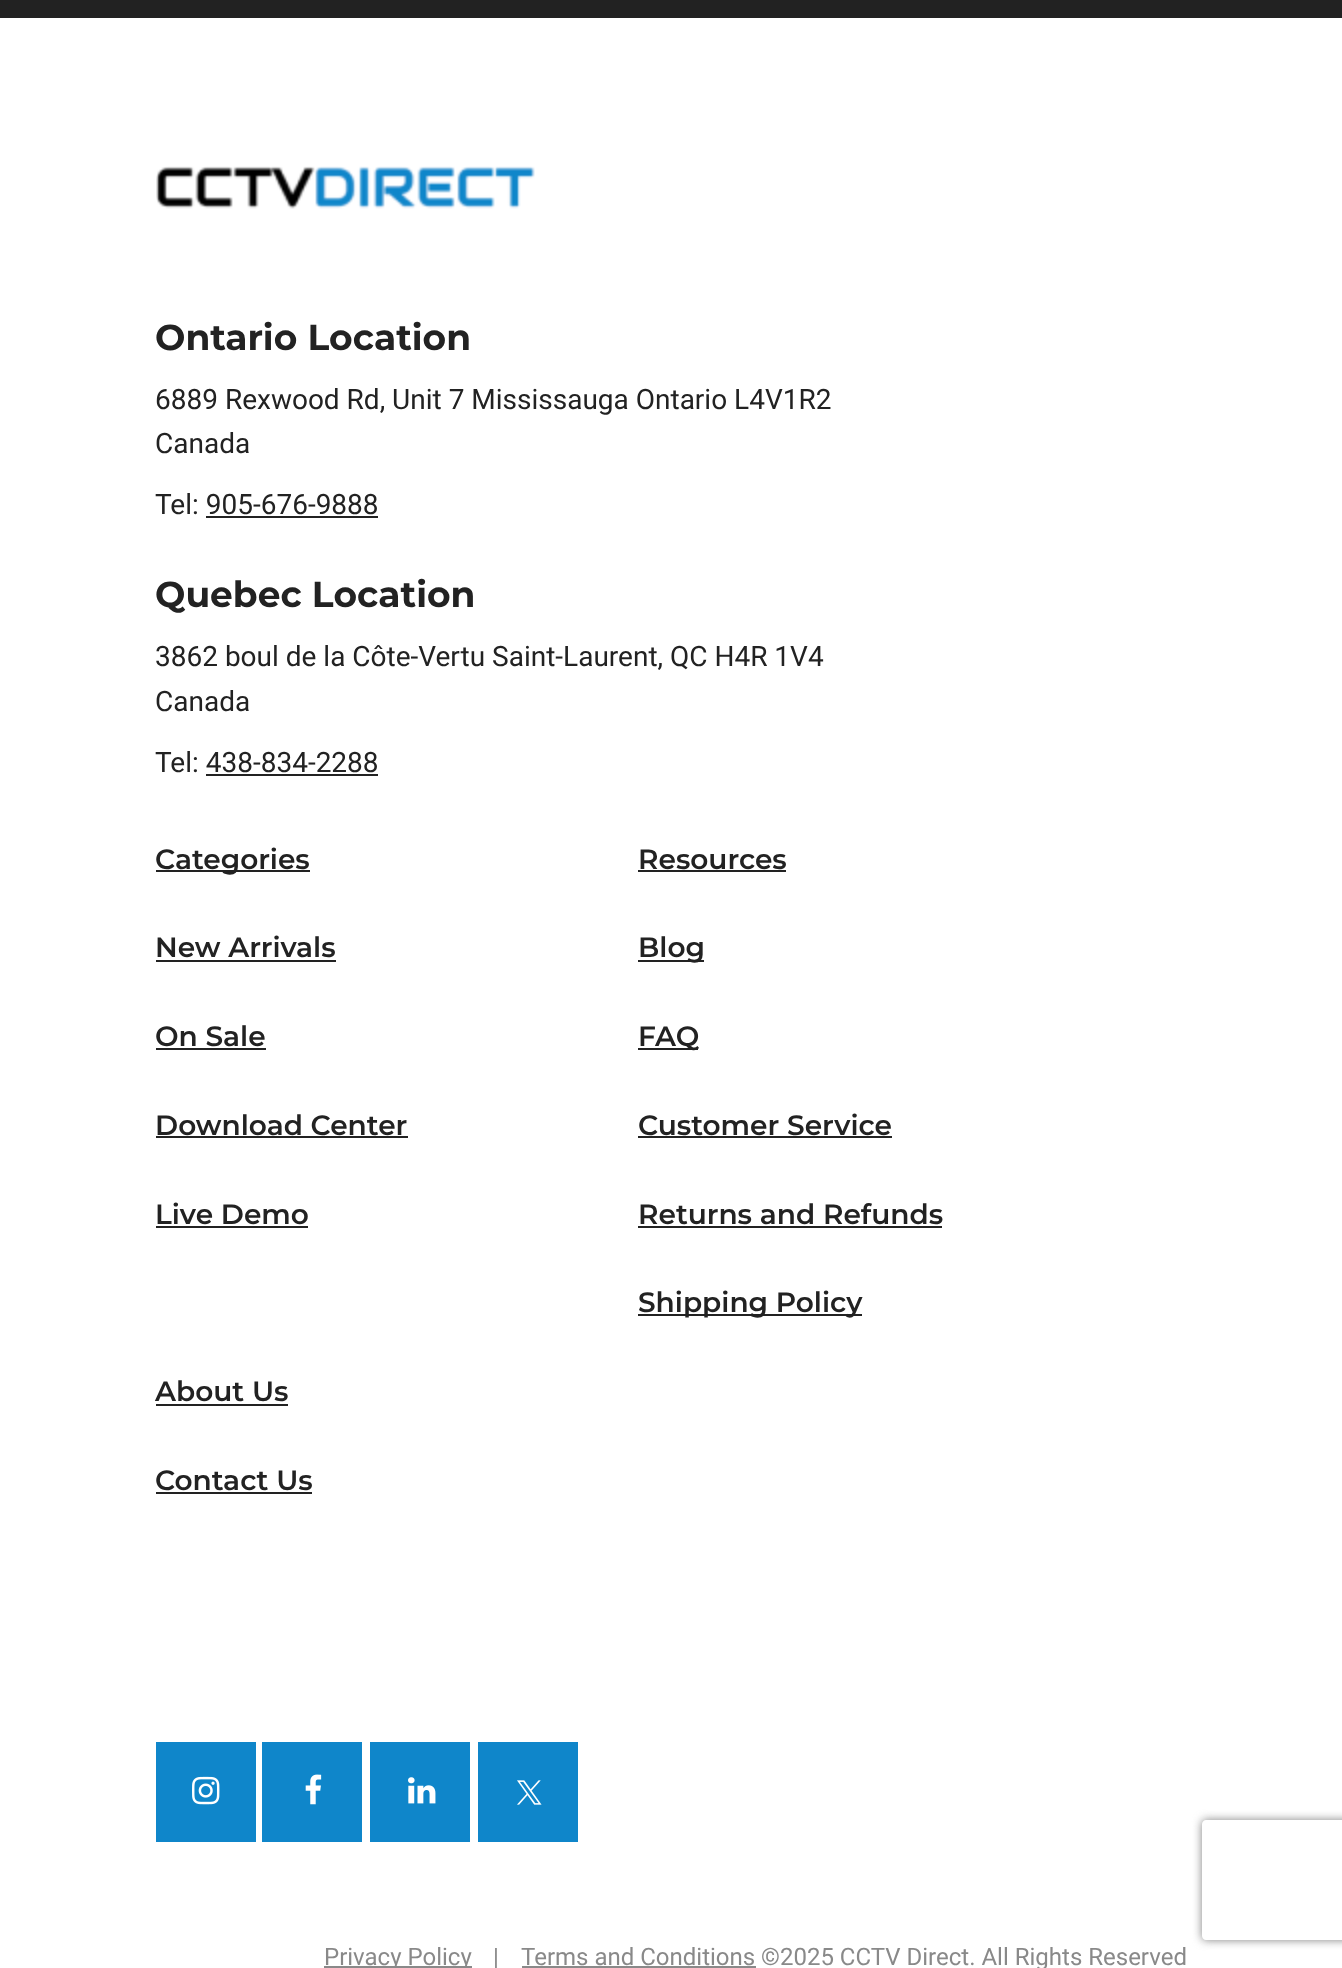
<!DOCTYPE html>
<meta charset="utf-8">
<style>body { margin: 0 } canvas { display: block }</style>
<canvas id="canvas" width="1342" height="1968"></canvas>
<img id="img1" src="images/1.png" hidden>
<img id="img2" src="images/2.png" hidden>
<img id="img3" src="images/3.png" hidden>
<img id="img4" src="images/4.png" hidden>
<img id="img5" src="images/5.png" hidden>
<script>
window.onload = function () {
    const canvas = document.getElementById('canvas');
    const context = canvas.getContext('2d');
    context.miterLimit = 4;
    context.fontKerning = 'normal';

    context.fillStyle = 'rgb(255, 255, 255)';
    context.fillRect(0, 0, 1342, 1968);
    context.fillStyle = 'rgb(34, 34, 34)';
    context.fillRect(0, 0, 1342, 18);
    context.drawImage(document.getElementById('img1'), 156, 166, 379, 43);
    context.fillRect(206, 516, 172, 2);
    context.fillRect(206, 774, 172, 2);
    context.fillRect(156, 870, 154, 2);
    context.fillRect(156, 960, 180, 2);
    context.fillRect(156, 1048, 110, 2);
    context.fillRect(638, 870, 148, 2);
    context.fillRect(638, 960, 66, 2);
    context.fillRect(638, 1048, 60, 2);
    context.fillRect(156, 1136, 252, 2);
    context.fillRect(156, 1226, 152, 2);
    context.fillRect(638, 1136, 254, 2);
    context.fillRect(638, 1226, 304, 2);
    context.fillRect(638, 1314, 224, 2);
    context.fillRect(156, 1404, 132, 2);
    context.fillRect(156, 1492, 156, 2);
    context.fillStyle = 'rgb(15, 134, 202)';
    context.fillRect(156, 1742, 100, 100);
    context.drawImage(document.getElementById('img2'), 192, 1776, 28, 29);
    context.fillRect(262, 1742, 100, 100);
    context.drawImage(document.getElementById('img3'), 305, 1774, 17, 31);
    context.fillRect(370, 1742, 100, 100);
    context.drawImage(document.getElementById('img4'), 408, 1777, 28, 27);
    context.fillRect(478, 1742, 100, 100);
    context.drawImage(document.getElementById('img5'), 517, 1780, 25, 25);
    context.fillStyle = 'rgb(137, 137, 137)';
    context.fillRect(324, 1966, 148, 2);
    context.fillRect(522, 1966, 234, 2);
    context.save();
    context.beginPath();
    context.moveTo(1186, 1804);
    context.lineTo(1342, 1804);
    context.lineTo(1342, 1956);
    context.lineTo(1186, 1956);
    context.closePath();
    context.moveTo(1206, 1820);
    context.lineTo(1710, 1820);
    context.bezierCurveTo(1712, 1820, 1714, 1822, 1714, 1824);
    context.lineTo(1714, 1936);
    context.bezierCurveTo(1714, 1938, 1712, 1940, 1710, 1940);
    context.lineTo(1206, 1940);
    context.bezierCurveTo(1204, 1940, 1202, 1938, 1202, 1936);
    context.lineTo(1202, 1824);
    context.bezierCurveTo(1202, 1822, 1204, 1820, 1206, 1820);
    context.closePath();
    context.clip('evenodd');
    context.fillStyle = 'rgb(128, 128, 128)';
    context.filter = 'blur(5px)';
    context.beginPath();
    context.roundRect(1202, 1820, 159, 120, 4);
    context.fill();
    context.filter = 'none';
    context.restore();
    context.font = 'bold 36px Montserrat';
    context.fillStyle = 'rgb(34, 34, 34)';
    context.fillText('Ontario Location', 155, 350);
    context.font = '28px Roboto';
    context.fillText('6889 Rexwood Rd, Unit 7 Mississauga Ontario L4V1R2', 155, 409);
    context.fillText('Canada', 155, 453);
    context.fillText('Tel: 905-676-9888', 155, 514);
    context.font = 'bold 36px Montserrat';
    context.fillText('Quebec Location', 155, 607);
    context.font = '28px Roboto';
    context.fillText('3862 boul de la Côte-Vertu Saint-Laurent, QC H4R 1V4', 155, 666);
    context.fillText('Canada', 155, 711);
    context.fillText('Tel: 438-834-2288', 155, 772);
    context.font = '600 28px Montserrat';
    context.fillText('Categories', 155, 869);
    context.fillText('New Arrivals', 155, 957);
    context.fillText('On Sale', 155, 1046);
    context.fillText('Resources', 638, 869);
    context.fillText('Blog', 638, 957);
    context.fillText('FAQ', 638, 1046);
    context.fillText('Download Center', 155, 1135);
    context.fillText('Live Demo', 155, 1224);
    context.fillText('Customer Service', 638, 1135);
    context.fillText('Returns and Refunds', 638, 1224);
    context.fillText('Shipping Policy', 638, 1312);
    context.fillText('About Us', 155, 1401);
    context.fillText('Contact Us', 155, 1490);
    context.font = '24px Roboto';
    context.fillStyle = 'rgb(137, 137, 137)';
    context.fillText('Privacy Policy', 324, 1965);
    context.fillText('|', 493, 1965);
    context.fillText('Terms and Conditions ©2025 CCTV Direct. All Rights Reserved', 521, 1965);
};
</script>
